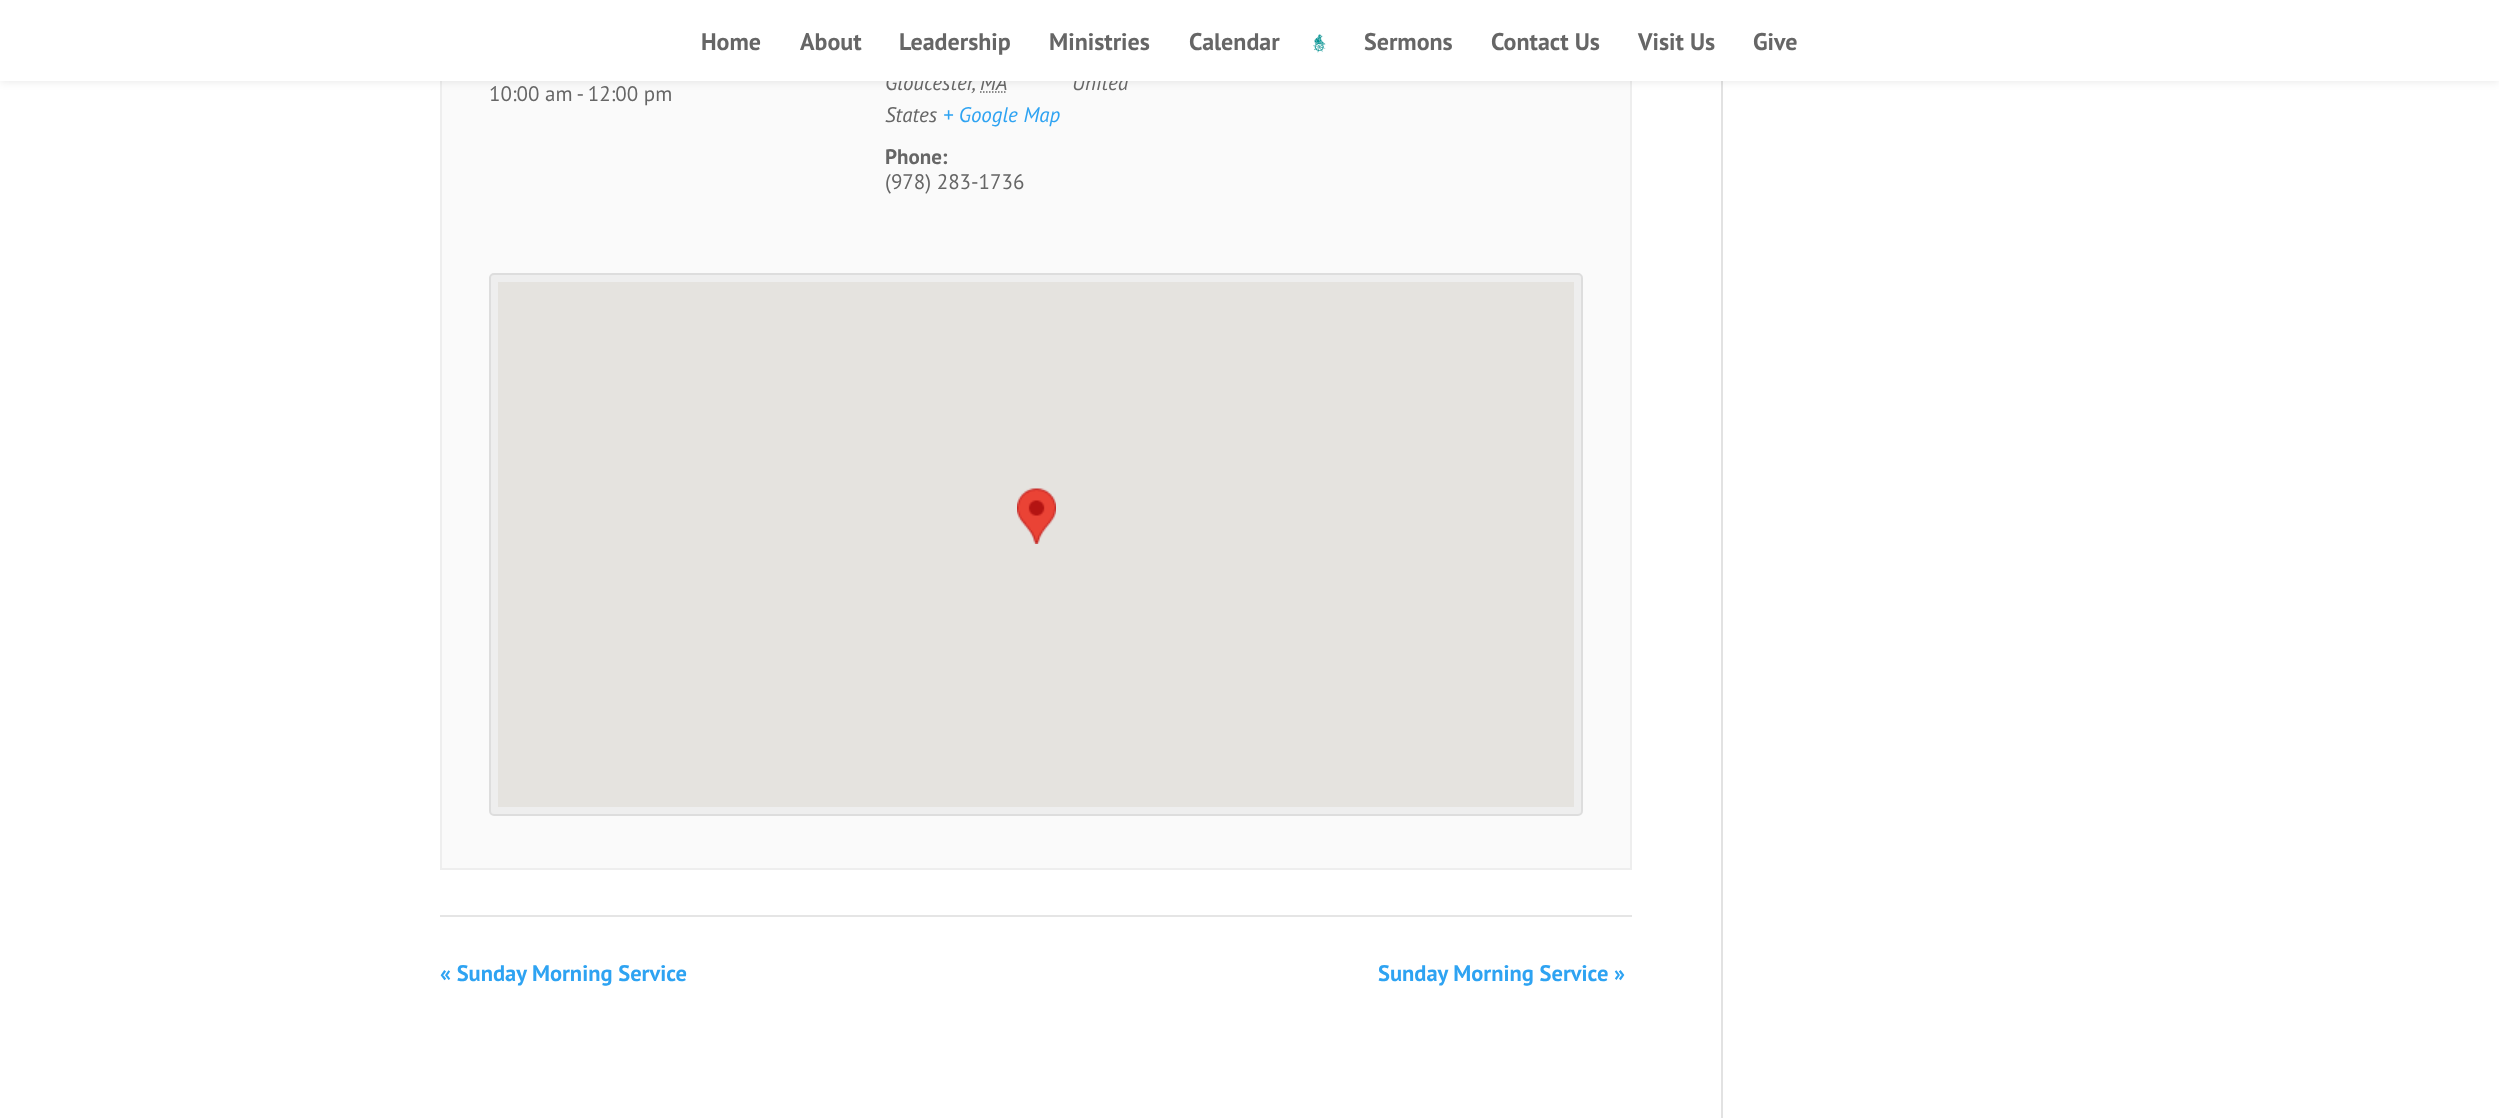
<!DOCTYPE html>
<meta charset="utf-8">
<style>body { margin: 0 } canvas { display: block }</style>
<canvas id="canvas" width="2499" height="1119"></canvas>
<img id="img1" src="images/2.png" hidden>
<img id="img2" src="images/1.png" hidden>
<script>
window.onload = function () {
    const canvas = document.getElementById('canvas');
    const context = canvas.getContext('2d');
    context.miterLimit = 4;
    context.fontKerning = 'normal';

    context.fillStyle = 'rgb(255, 255, 255)';
    context.fillRect(0, 0, 2499, 1119);
    context.fillStyle = 'rgb(250, 250, 250)';
    context.fillRect(442, 81, 1188, 787);
    context.strokeStyle = 'rgb(238, 238, 238)';
    context.lineWidth = 2;
    context.strokeRect(441, -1, 1190, 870);
    context.beginPath();
    context.moveTo(980, 92);
    context.lineTo(1006.5, 92);
    context.strokeStyle = 'rgb(102, 102, 102)';
    context.lineWidth = 1.5;
    context.setLineDash([1.5, 1.5]);
    context.stroke();
    context.fillStyle = 'rgb(226, 226, 226)';
    context.fillRect(1721, 81, 2, 1037);
    context.fillStyle = 'rgba(0, 0, 0, 0.1)';
    context.filter = 'blur(5px)';
    context.beginPath();
    context.rect(0, 0, 2499, 81);
    context.fill();
    context.filter = 'none';
    context.fillStyle = 'rgb(238, 238, 238)';
    context.beginPath();
    context.roundRect(490, 274, 1092, 541, 4);
    context.fill();
    context.strokeStyle = 'rgb(221, 221, 221)';
    context.lineWidth = 2;
    context.setLineDash([]);
    context.stroke();
    context.fillStyle = 'rgb(229, 227, 223)';
    context.fillRect(498, 282, 1076, 525);
    context.drawImage(document.getElementById('img1'), 1017, 488, 39, 56);
    context.fillStyle = 'rgb(229, 229, 229)';
    context.fillRect(440, 915, 1192, 2);
    context.font = '21px PT Sans';
    context.fillStyle = 'rgb(102, 102, 102)';
    context.fillText('10:00 am - 12:00 pm', 489, 101);
    context.font = 'italic 21px PT Sans';
    context.fillText('Gloucester', 885, 90);
    context.fillText('MA', 980, 90);
    context.fillText('United', 1072, 90);
    context.fillStyle = 'rgb(255, 255, 255)';
    context.fillRect(0, 0, 2499, 81);
    context.font = 'bold 24px PT Sans';
    context.fillStyle = 'rgb(102, 102, 102)';
    context.fillText('Give', 1753, 50);
    context.fillText('Visit Us', 1638, 50);
    context.fillText('Contact Us', 1491, 50);
    context.fillText('Sermons', 1364, 50);
    context.fillText('Calendar', 1189, 50);
    context.fillText('Ministries', 1049, 50);
    context.fillText('Leadership', 899, 50);
    context.fillText('About', 800, 50);
    context.fillText('Home', 701, 50);
    context.drawImage(document.getElementById('img2'), 1313, 34, 13, 19);
    context.font = 'italic 21px PT Sans';
    context.fillText(',', 972, 90);
    context.fillText('States', 885, 122);
    context.fillStyle = 'rgb(46, 163, 242)';
    context.fillText('+ Google Map', 943, 122);
    context.font = 'bold 21px PT Sans';
    context.fillStyle = 'rgb(102, 102, 102)';
    context.fillText('Phone:', 885, 164);
    context.font = '21px PT Sans';
    context.fillText('(978) 283-1736', 885, 189);
    context.font = 'bold 22.5px PT Sans';
    context.fillStyle = 'rgb(46, 163, 242)';
    context.fillText('« Sunday Morning Service', 440, 981);
    context.fillText('Sunday Morning Service »', 1378, 981);
};
</script>
